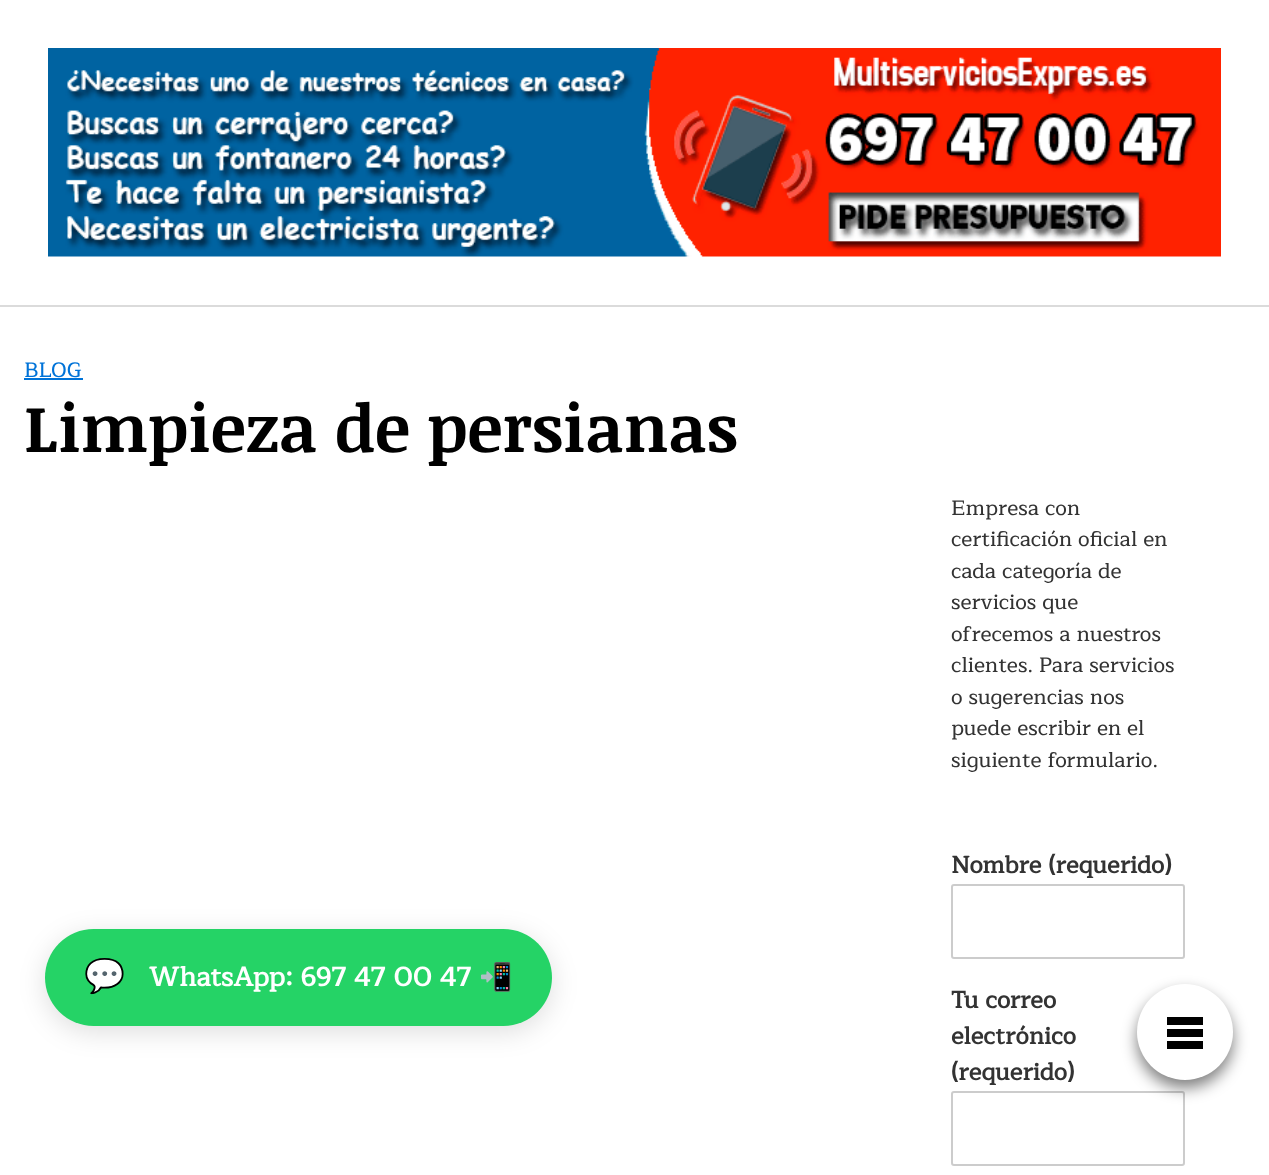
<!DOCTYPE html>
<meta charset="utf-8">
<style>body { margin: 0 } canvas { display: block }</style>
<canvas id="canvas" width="1269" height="1175"></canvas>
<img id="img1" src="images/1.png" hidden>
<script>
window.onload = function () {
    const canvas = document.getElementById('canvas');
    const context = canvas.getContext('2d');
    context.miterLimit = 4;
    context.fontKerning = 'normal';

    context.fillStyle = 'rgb(255, 255, 255)';
    context.fillRect(0, 0, 1269, 1175);
    context.fillStyle = 'rgb(219, 219, 219)';
    context.fillRect(0, 305, 1269, 2);
    context.drawImage(document.getElementById('img1'), 48, 48, 1173, 209);
    context.fillStyle = 'rgb(0, 115, 216)';
    context.fillRect(24, 378, 59, 2);
    context.beginPath();
    context.roundRect(952, 885, 232, 73, 2);
    context.strokeStyle = 'rgb(204, 204, 204)';
    context.lineWidth = 2;
    context.stroke();
    context.beginPath();
    context.roundRect(952, 1092, 232, 73, 2);
    context.stroke();
    context.fillStyle = 'rgba(0, 0, 0, 0.13)';
    context.filter = 'blur(13.5px)';
    context.beginPath();
    context.roundRect(45, 935, 507, 97, 48.5);
    context.fill();
    context.filter = 'none';
    context.fillStyle = 'rgb(37, 211, 102)';
    context.beginPath();
    context.roundRect(45, 929, 507, 97, 48.5);
    context.fill();
    context.fillStyle = 'rgba(0, 0, 0, 0.5)';
    context.filter = 'blur(7.5px)';
    context.beginPath();
    context.roundRect(1137, 992, 96, 96, 48);
    context.fill();
    context.filter = 'none';
    context.fillStyle = 'rgb(255, 255, 255)';
    context.beginPath();
    context.arc(1185, 1032, 48, 0, 2 * Math.PI);
    context.fill();
    context.fillStyle = 'rgb(0, 0, 0)';
    context.fillRect(1167, 1029, 36, 8);
    context.fillRect(1167, 1017, 36, 8);
    context.fillRect(1167, 1041, 36, 8);
    context.font = '500 21px Maitree';
    context.fillStyle = 'rgb(0, 115, 216)';
    context.fillText('BLOG', 24, 377);
    context.font = 'bold 66px Noticia Text';
    context.fillStyle = 'rgb(0, 0, 0)';
    context.fillText('Limpieza de persianas', 24, 452);
    context.font = '500 21px Maitree';
    context.fillStyle = 'rgb(51, 51, 51)';
    context.fillText('Empresa con', 951, 515);
    context.fillText('certificación oficial en', 951, 546);
    context.fillText('cada categoría de', 951, 578);
    context.fillText('servicios que', 951, 609);
    context.fillText('ofrecemos a nuestros', 951, 641);
    context.fillText('clientes. Para servicios', 951, 672);
    context.fillText('o sugerencias nos', 951, 704);
    context.fillText('puede escribir en el', 951, 735);
    context.fillText('siguiente formulario.', 951, 767);
    context.font = 'bold 24px Maitree';
    context.fillText('Nombre (requerido)', 951, 873);
    context.fillText('Tu correo', 951, 1008);
    context.fillText('electrónico', 951, 1044);
    context.fillText('(requerido)', 951, 1080);
    context.font = 'bold 33px Noto Color Emoji';
    context.fillStyle = 'rgb(255, 255, 255)';
    context.fillText('💬', 84, 987);
    context.font = 'bold 27px Maitree';
    context.fillText('WhatsApp: 697 47 00 47', 149, 986);
    context.font = 'bold 27px Noto Color Emoji';
    context.fillText('📲', 479, 986);
};
</script>
